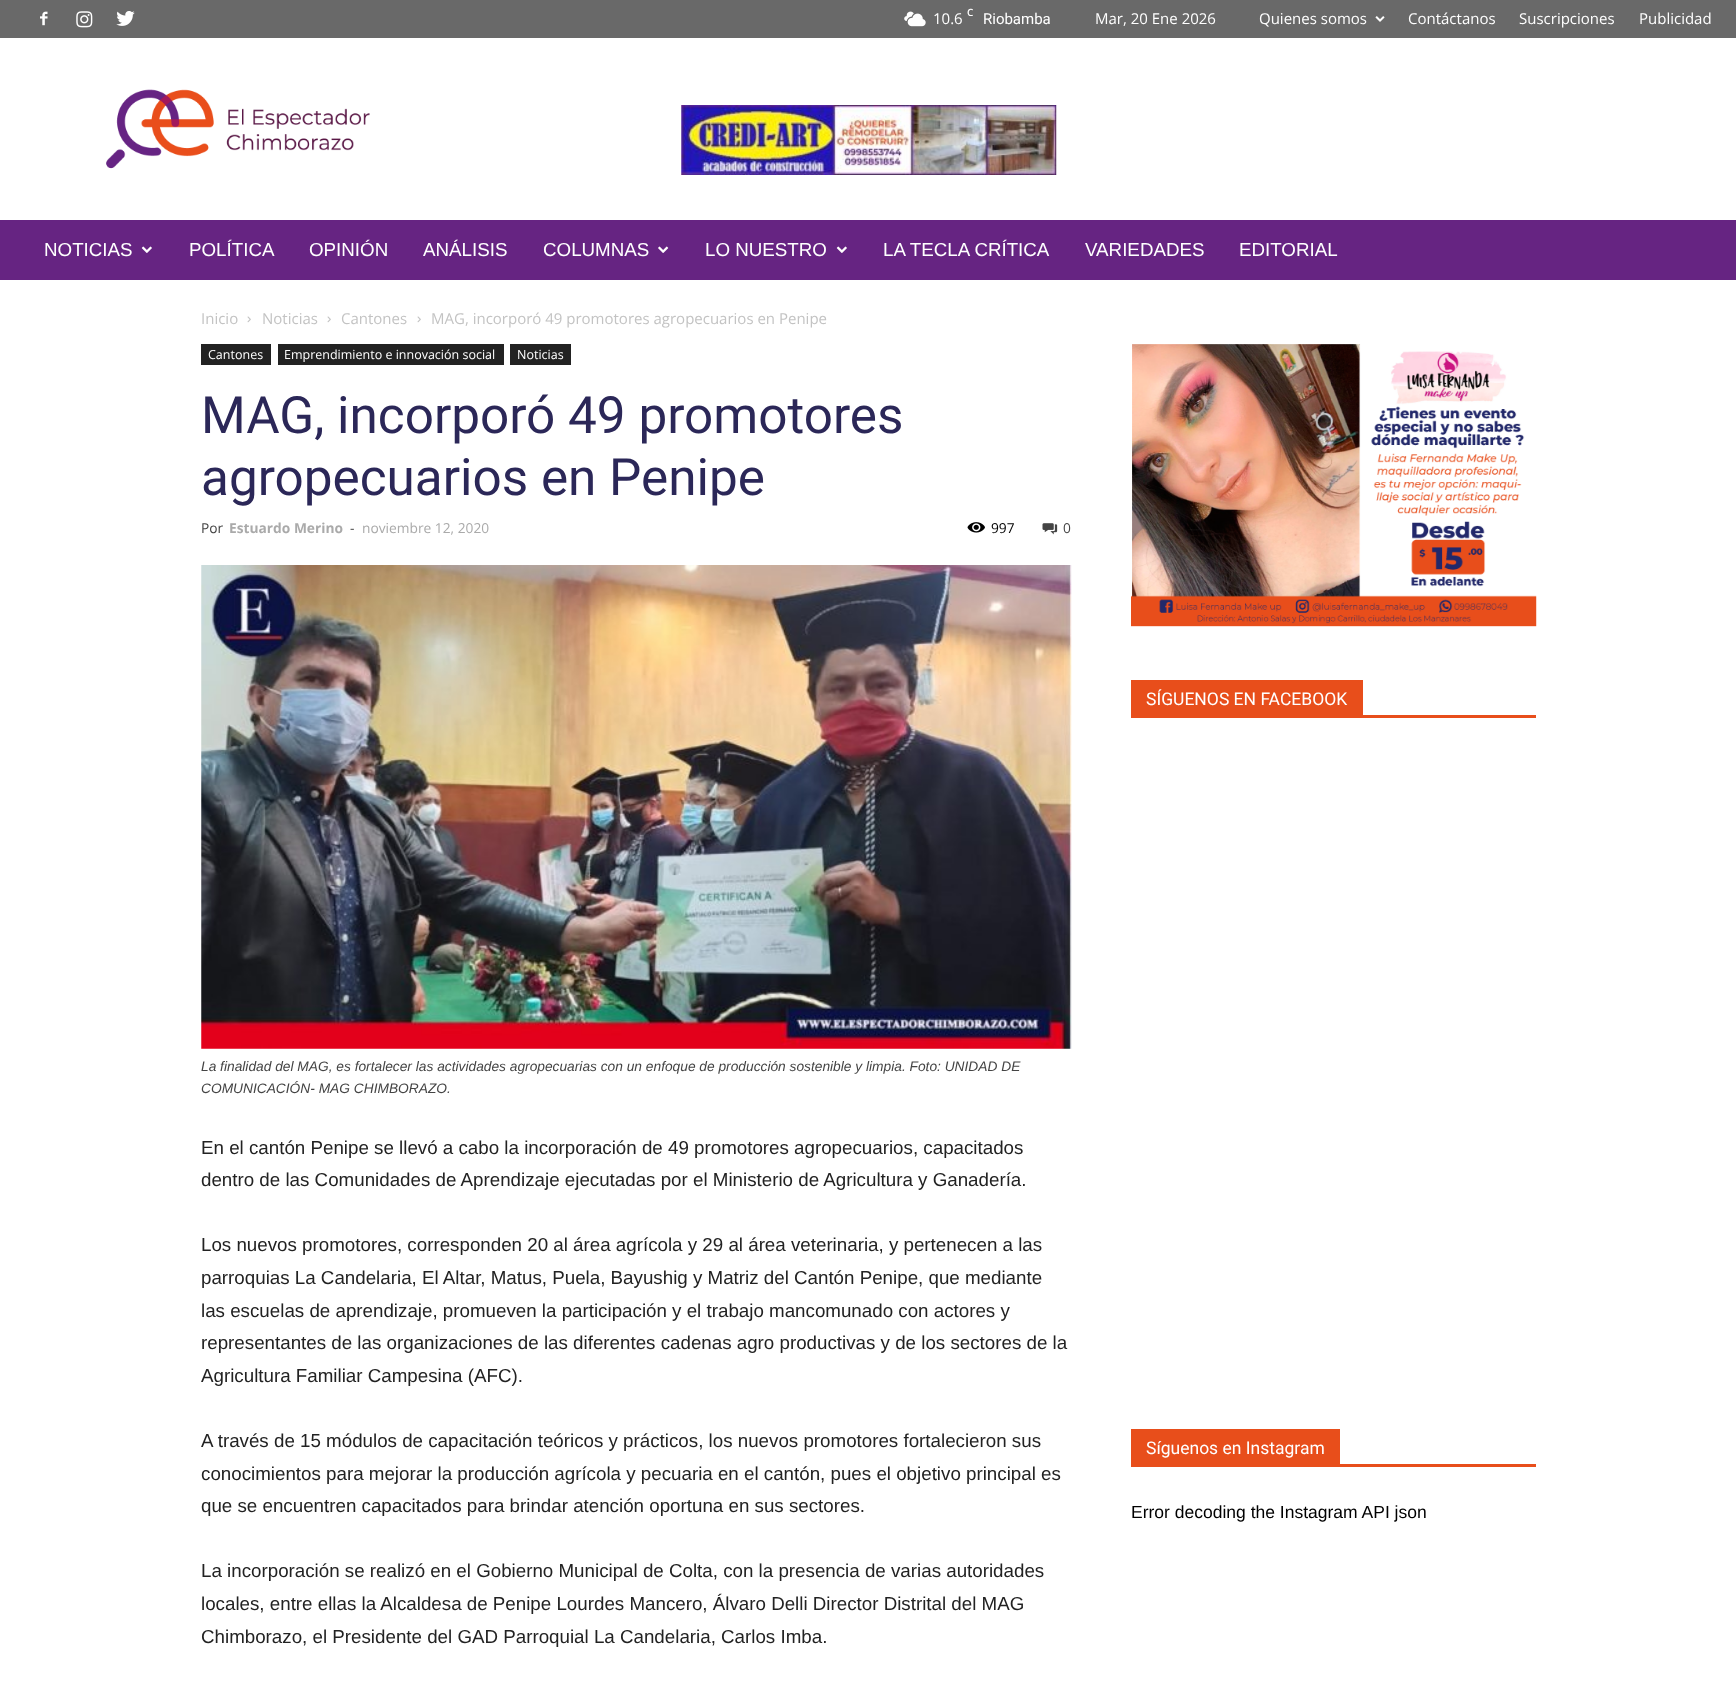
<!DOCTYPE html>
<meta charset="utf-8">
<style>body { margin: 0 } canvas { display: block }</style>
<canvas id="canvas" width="1736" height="1701"></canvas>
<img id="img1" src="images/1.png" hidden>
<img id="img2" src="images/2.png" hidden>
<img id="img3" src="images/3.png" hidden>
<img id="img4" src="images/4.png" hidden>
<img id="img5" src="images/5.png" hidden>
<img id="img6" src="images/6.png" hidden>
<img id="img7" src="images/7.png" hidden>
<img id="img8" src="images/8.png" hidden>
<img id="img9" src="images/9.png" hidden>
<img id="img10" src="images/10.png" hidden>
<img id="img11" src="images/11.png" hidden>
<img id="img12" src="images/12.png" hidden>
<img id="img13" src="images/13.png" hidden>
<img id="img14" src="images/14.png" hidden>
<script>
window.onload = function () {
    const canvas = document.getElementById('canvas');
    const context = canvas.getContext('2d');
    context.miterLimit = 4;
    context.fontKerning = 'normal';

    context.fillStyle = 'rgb(255, 255, 255)';
    context.fillRect(0, 0, 1736, 1701);
    context.fillStyle = 'rgb(105, 105, 105)';
    context.fillRect(0, 0, 1736, 38);
    context.drawImage(document.getElementById('img1'), 40, 11, 8, 15);
    context.drawImage(document.getElementById('img2'), 76, 11, 17, 17);
    context.drawImage(document.getElementById('img3'), 116, 11, 19, 15);
    context.drawImage(document.getElementById('img4'), 904, 11, 22, 16);
    context.drawImage(document.getElementById('img5'), 1375, 16, 10, 6);
    context.drawImage(document.getElementById('img6'), 106, 89, 264, 80);
    context.drawImage(document.getElementById('img7'), 681, 105, 376, 70);
    context.fillStyle = 'rgb(102, 36, 130)';
    context.fillRect(0, 220, 1736, 60);
    context.drawImage(document.getElementById('img8'), 141, 246, 11, 7);
    context.drawImage(document.getElementById('img9'), 658, 246, 11, 7);
    context.drawImage(document.getElementById('img8'), 836, 246, 11, 7);
    context.drawImage(document.getElementById('img10'), 247, 316, 4, 7);
    context.drawImage(document.getElementById('img10'), 327, 316, 4, 7);
    context.drawImage(document.getElementById('img10'), 417, 316, 4, 7);
    context.fillStyle = 'rgb(34, 34, 34)';
    context.fillRect(201, 344, 70, 21);
    context.fillRect(278, 344, 226, 21);
    context.fillRect(510, 344, 61, 21);
    context.drawImage(document.getElementById('img11'), 967, 522, 18, 11);
    context.drawImage(document.getElementById('img12'), 1042, 523, 16, 12);
    context.drawImage(document.getElementById('img13'), 201, 565, 871, 484);
    context.drawImage(document.getElementById('img14'), 1131, 344, 406, 283);
    context.fillStyle = 'rgb(232, 78, 27)';
    context.fillRect(1131, 715, 405, 3);
    context.fillRect(1131, 680, 232, 35);
    context.fillRect(1131, 1464, 405, 3);
    context.fillRect(1131, 1429, 209, 35);
    context.font = '15px Open Sans';
    context.fillStyle = 'rgb(255, 255, 255)';
    context.fillText('10.6', 933, 24);
    context.font = '600 10px Open Sans';
    context.fillText('C', 967, 16);
    context.font = '15px Roboto';
    context.fillText('Riobamba', 983, 24);
    context.font = '15px Open Sans';
    context.fillText('Mar, 20 Ene 2026', 1095, 24);
    context.fillText('Quienes somos', 1259, 24);
    context.fillText('Contáctanos', 1408, 24);
    context.fillText('Suscripciones', 1519, 24);
    context.fillText('Publicidad', 1639, 24);
    context.font = '18.75px Liberation Sans';
    context.fillText('NOTICIAS', 44, 256);
    context.fillText('POLÍTICA', 189, 256);
    context.fillText('OPINIÓN', 309, 256);
    context.fillText('ANÁLISIS', 423, 256);
    context.fillText('COLUMNAS', 543, 256);
    context.fillText('LO NUESTRO', 705, 256);
    context.fillText('LA TECLA CRÍTICA', 883, 256);
    context.fillText('VARIEDADES', 1085, 256);
    context.fillText('EDITORIAL', 1239, 256);
    context.font = '15px Open Sans';
    context.fillStyle = 'rgb(195, 195, 195)';
    context.fillText('Inicio', 201, 324);
    context.fillText('Noticias', 262, 324);
    context.fillText('Cantones', 341, 324);
    context.fillText('MAG, incorporó 49 promotores agropecuarios en Penipe', 431, 324);
    context.font = '12.5px Open Sans';
    context.fillStyle = 'rgb(255, 255, 255)';
    context.fillText('Cantones', 208, 359);
    context.fillText('Emprendimiento e innovación social', 284, 359);
    context.fillText('Noticias', 517, 359);
    context.font = '51.25px Roboto';
    context.fillStyle = 'rgb(43, 39, 88)';
    context.fillText('MAG, incorporó 49 promotores', 201, 433);
    context.fillText('agropecuarios en Penipe', 201, 495);
    context.font = '13.75px Open Sans';
    context.fillStyle = 'rgb(68, 68, 68)';
    context.fillText('Por', 201, 533);
    context.font = 'bold 13.75px Open Sans';
    context.fillStyle = 'rgb(170, 170, 170)';
    context.fillText('Estuardo Merino', 229, 533);
    context.font = '13.75px Open Sans';
    context.fillStyle = 'rgb(68, 68, 68)';
    context.fillText('-', 350, 533);
    context.fillStyle = 'rgb(170, 170, 170)';
    context.fillText('noviembre 12, 2020', 362, 533);
    context.fillStyle = 'rgb(0, 0, 0)';
    context.fillText('997', 991, 533);
    context.fillStyle = 'rgb(68, 68, 68)';
    context.fillText('0', 1063, 533);
    context.font = 'italic 13.75px Liberation Sans';
    context.fillText('La finalidad del MAG, es fortalecer las actividades agropecuarias con un enfoque de producción sostenible y limpia. Foto: UNIDAD DE', 201, 1071);
    context.fillText('COMUNICACIÓN- MAG CHIMBORAZO.', 201, 1093);
    context.font = '18.75px Liberation Sans';
    context.fillStyle = 'rgb(34, 34, 34)';
    context.fillText('En el cantón Penipe se llevó a cabo la incorporación de 49 promotores agropecuarios, capacitados', 201, 1154);
    context.fillText('dentro de las Comunidades de Aprendizaje ejecutadas por el Ministerio de Agricultura y Ganadería.', 201, 1186);
    context.fillText('Los nuevos promotores, corresponden 20 al área agrícola y 29 al área veterinaria, y pertenecen a las', 201, 1251);
    context.fillText('parroquias La Candelaria, El Altar, Matus, Puela, Bayushig y Matriz del Cantón Penipe, que mediante', 201, 1284);
    context.fillText('las escuelas de aprendizaje, promueven la participación y el trabajo mancomunado con actores y', 201, 1317);
    context.fillText('representantes de las organizaciones de las diferentes cadenas agro productivas y de los sectores de la', 201, 1349);
    context.fillText('Agricultura Familiar Campesina (AFC).', 201, 1382);
    context.fillText('A través de 15 módulos de capacitación teóricos y prácticos, los nuevos promotores fortalecieron sus', 201, 1447);
    context.fillText('conocimientos para mejorar la producción agrícola y pecuaria en el cantón, pues el objetivo principal es', 201, 1480);
    context.fillText('que se encuentren capacitados para brindar atención oportuna en sus sectores.', 201, 1512);
    context.fillText('La incorporación se realizó en el Gobierno Municipal de Colta, con la presencia de varias autoridades', 201, 1577);
    context.fillText('locales, entre ellas la Alcaldesa de Penipe Lourdes Mancero, Álvaro Delli Director Distrital del MAG', 201, 1610);
    context.fillText('Chimborazo, el Presidente del GAD Parroquial La Candelaria, Carlos Imba.', 201, 1643);
    context.font = '17.5px Roboto';
    context.fillStyle = 'rgb(255, 255, 255)';
    context.fillText('SÍGUENOS EN FACEBOOK', 1146, 705);
    context.fillText('Síguenos en Instagram', 1146, 1454);
    context.font = '17.5px Liberation Sans';
    context.fillStyle = 'rgb(0, 0, 0)';
    context.fillText('Error decoding the Instagram API json', 1131, 1518);
};
</script>
